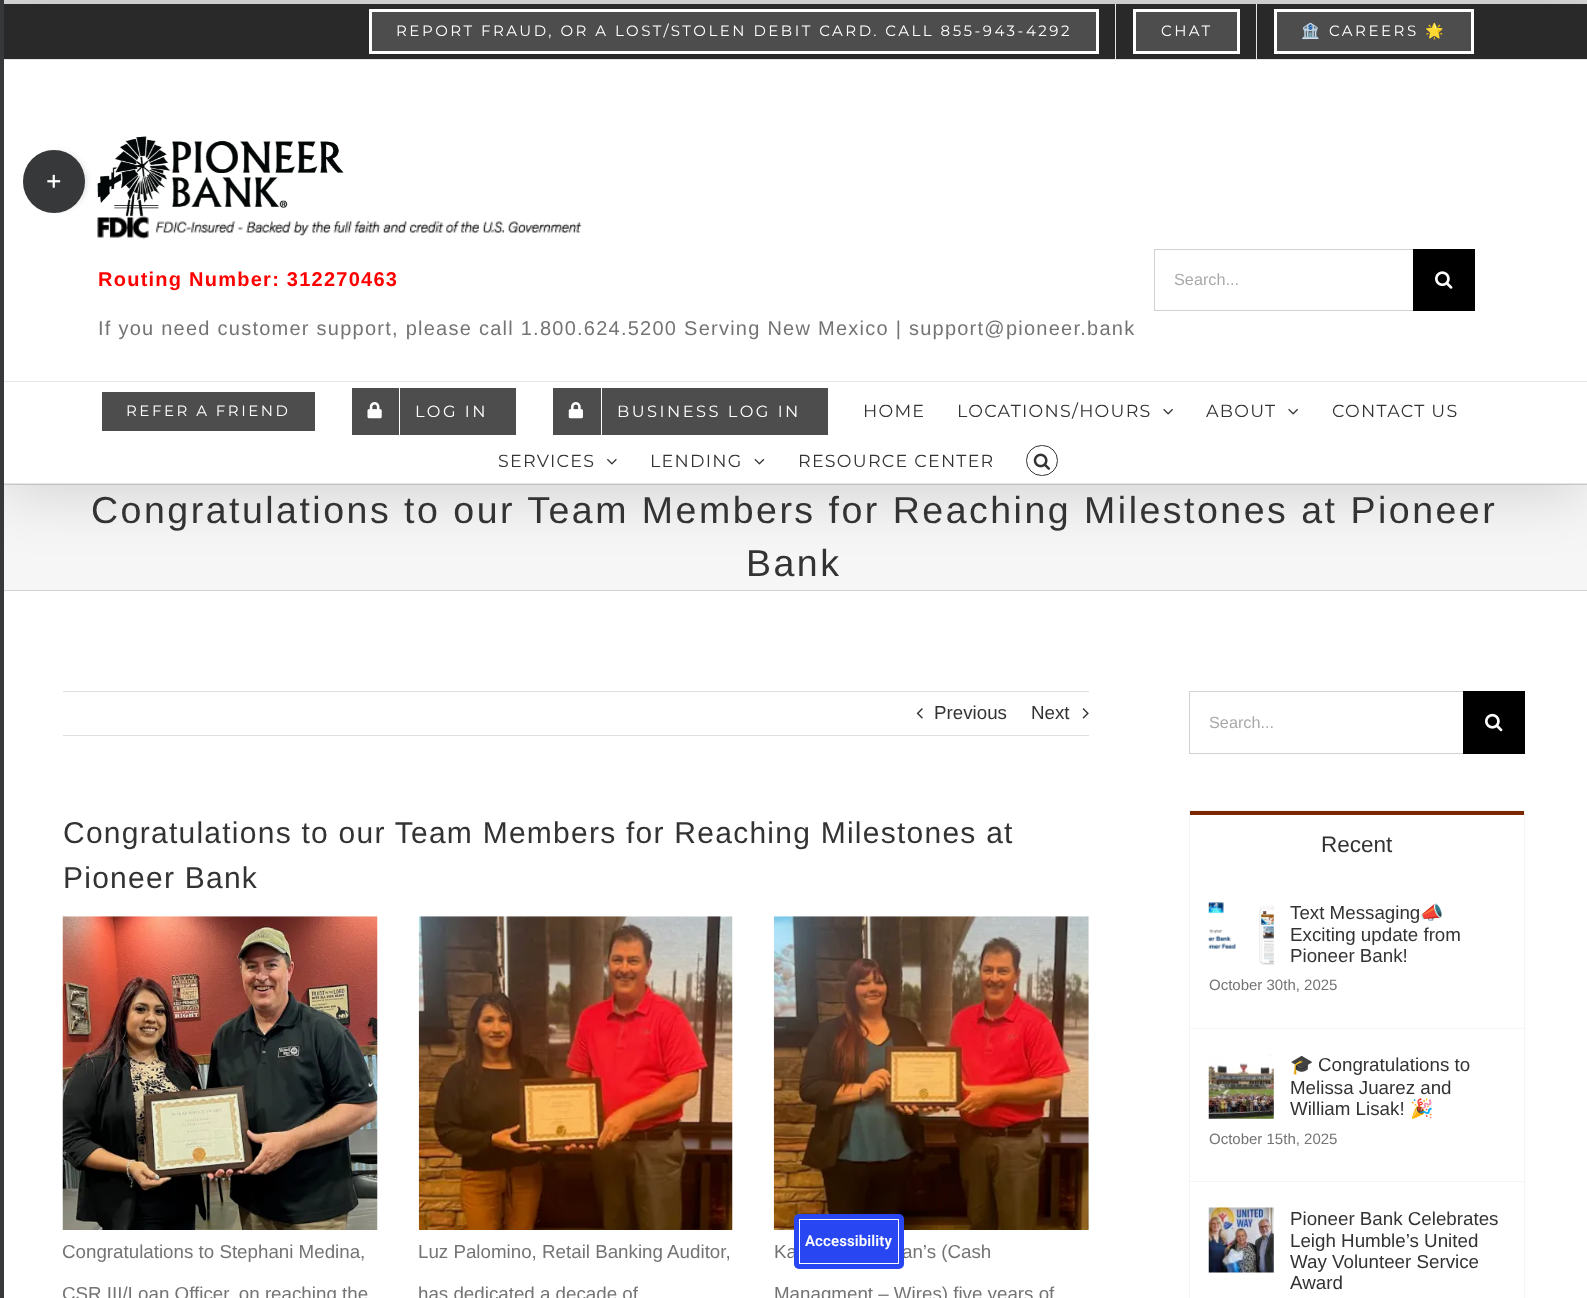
<!DOCTYPE html>
<meta charset="utf-8">
<style>body { margin: 0 } canvas { display: block }</style>
<canvas id="canvas" width="1587" height="1298"></canvas>
<img id="img1" src="images/1.png" hidden>
<img id="img2" src="images/2.png" hidden>
<img id="img3" src="images/3.png" hidden>
<img id="img4" src="images/4.png" hidden>
<img id="img5" src="images/5.png" hidden>
<img id="img6" src="images/6.png" hidden>
<img id="img7" src="images/7.png" hidden>
<img id="img8" src="images/8.png" hidden>
<img id="img9" src="images/9.png" hidden>
<img id="img10" src="images/10.png" hidden>
<img id="img11" src="images/11.png" hidden>
<img id="img12" src="images/12.png" hidden>
<img id="img13" src="images/13.png" hidden>
<img id="img14" src="images/14.png" hidden>
<img id="img15" src="images/15.png" hidden>
<img id="img16" src="images/16.png" hidden>
<img id="img17" src="images/17.png" hidden>
<img id="img18" src="images/18.png" hidden>
<img id="img19" src="images/19.png" hidden>
<script>
window.onload = function () {
    const canvas = document.getElementById('canvas');
    const context = canvas.getContext('2d');
    context.miterLimit = 4;
    context.fontKerning = 'normal';

    context.fillStyle = 'rgb(215, 214, 214)';
    context.fillRect(0, 0, 1587, 1298);
    context.fillStyle = 'rgb(255, 255, 255)';
    context.fillRect(4, 60, 1583, 1238);
    context.fillStyle = 'rgb(246, 246, 246)';
    context.fillRect(4, 485, 1583, 105);
    context.fillStyle = 'rgb(210, 211, 212)';
    context.fillRect(0, 484, 1587, 1);
    context.save();
    context.beginPath();
    context.moveTo(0, 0);
    context.lineTo(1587, 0);
    context.lineTo(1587, 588);
    context.lineTo(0, 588);
    context.closePath();
    context.moveTo(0, 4);
    context.lineTo(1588, 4);
    context.lineTo(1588, 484);
    context.lineTo(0, 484);
    context.closePath();
    context.clip('evenodd');
    context.fillStyle = 'rgba(0, 0, 0, 0.14)';
    context.filter = 'blur(31px)';
    context.beginPath();
    context.rect(3, 19, 1582, 475);
    context.fill();
    context.filter = 'none';
    context.restore();
    context.fillStyle = 'rgb(229, 229, 229)';
    context.fillRect(0, 59, 1587, 1);
    context.fillRect(0, 381, 1587, 1);
    context.fillRect(0, 483, 1587, 1);
    context.fillStyle = 'rgb(210, 211, 212)';
    context.fillRect(0, 590, 1587, 1);
    context.fillStyle = 'rgb(54, 56, 57)';
    context.fillRect(0, 0, 4, 1298);
    context.fillStyle = 'rgba(0, 0, 0, 0.14)';
    context.filter = 'blur(3px)';
    context.beginPath();
    context.roundRect(29, 153, 57, 57, 28.5);
    context.fill();
    context.filter = 'none';
    context.fillStyle = 'rgb(54, 56, 57)';
    context.beginPath();
    context.roundRect(23, 150, 62, 63, 31);
    context.fill();
    context.drawImage(document.getElementById('img1'), 47, 174, 14, 14);
    context.fillStyle = 'rgb(41, 41, 42)';
    context.fillRect(4, 4, 1583, 55);
    context.fillStyle = 'rgb(77, 77, 77)';
    context.beginPath();
    context.rect(370.5, 10.5, 727, 42);
    context.fill();
    context.strokeStyle = 'rgb(255, 255, 255)';
    context.lineWidth = 3;
    context.stroke();
    context.fillStyle = 'rgb(229, 229, 229)';
    context.fillRect(1115, 4, 1, 55);
    context.fillStyle = 'rgb(77, 77, 77)';
    context.beginPath();
    context.rect(1134.5, 10.5, 104, 42);
    context.fill();
    context.stroke();
    context.fillStyle = 'rgb(229, 229, 229)';
    context.fillRect(1256, 4, 1, 55);
    context.fillStyle = 'rgb(77, 77, 77)';
    context.beginPath();
    context.rect(1275.5, 10.5, 197, 42);
    context.fill();
    context.stroke();
    context.drawImage(document.getElementById('img2'), 97, 136, 247, 81);
    context.drawImage(document.getElementById('img3'), 97, 216, 485, 23);
    context.fillStyle = 'rgb(210, 210, 210)';
    context.fillRect(1154, 249, 259, 1);
    context.fillRect(1154, 310, 259, 1);
    context.fillRect(1154, 249, 1, 62);
    context.fillStyle = 'rgb(0, 0, 0)';
    context.fillRect(1413, 249, 62, 62);
    context.drawImage(document.getElementById('img4'), 1435, 271, 18, 18);
    context.fillStyle = 'rgb(77, 77, 77)';
    context.fillRect(102, 392, 213, 39);
    context.fillRect(352, 388, 164, 47);
    context.fillStyle = 'rgb(255, 255, 255)';
    context.fillRect(399, 388, 1, 47);
    context.drawImage(document.getElementById('img5'), 367, 402, 15, 17);
    context.fillStyle = 'rgb(77, 77, 77)';
    context.fillRect(553, 388, 275, 47);
    context.fillStyle = 'rgb(255, 255, 255)';
    context.fillRect(601, 388, 1, 47);
    context.drawImage(document.getElementById('img6'), 568, 402, 15, 17);
    context.drawImage(document.getElementById('img7'), 1163, 408, 10, 7);
    context.drawImage(document.getElementById('img7'), 1288, 408, 10, 7);
    context.drawImage(document.getElementById('img8'), 607, 458, 10, 7);
    context.drawImage(document.getElementById('img9'), 754, 458, 11, 7);
    context.beginPath();
    context.roundRect(1026.5, 445.5, 31, 30, 15);
    context.strokeStyle = 'rgb(51, 51, 51)';
    context.lineWidth = 1;
    context.stroke();
    context.drawImage(document.getElementById('img10'), 1033, 453, 17, 17);
    context.fillStyle = 'rgb(224, 222, 222)';
    context.fillRect(63, 691, 1026, 1);
    context.fillRect(63, 735, 1026, 1);
    context.drawImage(document.getElementById('img11'), 916, 708, 7, 11);
    context.drawImage(document.getElementById('img12'), 1082, 708, 7, 11);
    context.drawImage(document.getElementById('img13'), 62, 916, 316, 314);
    context.drawImage(document.getElementById('img14'), 418, 916, 315, 314);
    context.drawImage(document.getElementById('img15'), 773, 916, 316, 314);
    context.fillStyle = 'rgb(210, 210, 210)';
    context.fillRect(1189, 691, 274, 1);
    context.fillRect(1189, 753, 274, 1);
    context.fillRect(1189, 691, 1, 63);
    context.fillStyle = 'rgb(0, 0, 0)';
    context.fillRect(1463, 691, 62, 63);
    context.drawImage(document.getElementById('img16'), 1485, 713, 18, 19);
    context.strokeStyle = 'rgb(245, 245, 245)';
    context.strokeRect(1189.5, 810.5, 335, 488);
    context.fillStyle = 'rgb(123, 39, 0)';
    context.fillRect(1190, 811, 334, 4);
    context.fillStyle = 'rgb(245, 245, 245)';
    context.fillRect(1190, 1028, 334, 1);
    context.drawImage(document.getElementById('img17'), 1208, 902, 66, 63);
    context.fillRect(1190, 1181, 334, 1);
    context.drawImage(document.getElementById('img18'), 1208, 1054, 66, 65);
    context.drawImage(document.getElementById('img19'), 1208, 1207, 66, 66);
    context.letterSpacing = '2.5px';
    context.font = '15px Montserrat';
    context.fillStyle = 'rgb(255, 255, 255)';
    context.fillText('REPORT FRAUD, OR A LOST/STOLEN DEBIT CARD. CALL 855-943-4292', 396, 36);
    context.fillText('CHAT', 1161, 36);
    context.font = '15px Noto Color Emoji';
    context.fillText('🏦', 1301, 36);
    context.font = '15px Montserrat';
    context.fillText('CAREERS', 1329, 36);
    context.font = '15px Noto Color Emoji';
    context.fillText('🌟', 1425, 36);
    context.letterSpacing = '1.25px';
    context.font = 'bold 20px Liberation Sans';
    context.fillStyle = 'rgb(255, 0, 0)';
    context.fillText('Routing Number: 312270463', 98, 286);
    context.font = '20px Liberation Sans';
    context.fillStyle = 'rgb(116, 116, 116)';
    context.fillText('If you need customer support, please call 1.800.624.5200 Serving New Mexico | support@pioneer.bank', 98, 335);
    context.letterSpacing = '0px';
    context.font = '16.25px Liberation Sans';
    context.fillStyle = 'rgb(170, 169, 169)';
    context.fillText('Search...', 1174, 285);
    context.letterSpacing = '2.5px';
    context.font = '15px Montserrat';
    context.fillStyle = 'rgb(255, 255, 255)';
    context.fillText('REFER A FRIEND', 126, 416);
    context.font = '16.25px Montserrat';
    context.fillText('LOG IN', 415, 417);
    context.fillText('BUSINESS LOG IN', 617, 417);
    context.letterSpacing = '1.25px';
    context.font = '17.5px Montserrat';
    context.fillStyle = 'rgb(51, 51, 51)';
    context.fillText('HOME', 863, 417);
    context.fillText('LOCATIONS/HOURS', 957, 417);
    context.fillText('ABOUT', 1206, 417);
    context.fillText('CONTACT US', 1332, 417);
    context.fillText('SERVICES', 498, 467);
    context.fillText('LENDING', 650, 467);
    context.fillText('RESOURCE CENTER', 798, 467);
    context.letterSpacing = '2.5px';
    context.font = '37.5px Liberation Sans';
    context.fillText('Congratulations to our Team Members for Reaching Milestones at Pioneer', 91, 523);
    context.fillText('Bank', 746, 576);
    context.letterSpacing = '0px';
    context.font = '18.75px Liberation Sans';
    context.fillText('Previous', 934, 719);
    context.fillText('Next', 1031, 719);
    context.letterSpacing = '1.25px';
    context.font = '30px Liberation Sans';
    context.fillText('Congratulations to our Team Members for Reaching Milestones at', 63, 843);
    context.fillText('Pioneer Bank', 63, 888);
    context.letterSpacing = '0px';
    context.font = '18.75px Liberation Sans';
    context.fillStyle = 'rgb(116, 116, 116)';
    context.fillText('Congratulations to Stephani Medina,', 62, 1258);
    context.fillText('CSR III/Loan Officer, on reaching the', 62, 1300);
    context.fillText('Luz Palomino, Retail Banking Auditor,', 418, 1258);
    context.fillText('has dedicated a decade of', 418, 1300);
    context.fillText('Ka', 774, 1258);
    context.fillText('an’s (Cash', 902, 1258);
    context.fillText('Managment – Wires) five years of', 774, 1300);
    context.font = '16.25px Liberation Sans';
    context.fillStyle = 'rgb(170, 169, 169)';
    context.fillText('Search...', 1209, 728);
    context.font = '22.5px Liberation Sans';
    context.fillStyle = 'rgb(51, 51, 51)';
    context.fillText('Recent', 1321, 852);
    context.font = '18.75px Liberation Sans';
    context.fillText('Text Messaging', 1290, 919);
    context.font = '18.75px Noto Color Emoji';
    context.fillText('📣', 1420, 919);
    context.font = '18.75px Liberation Sans';
    context.fillText('Exciting update from', 1290, 941);
    context.fillText('Pioneer Bank!', 1290, 962);
    context.font = '15px Liberation Sans';
    context.fillStyle = 'rgb(116, 116, 116)';
    context.fillText('October 30th, 2025', 1209, 990);
    context.save();
    context.beginPath();
    context.rect(1290, 1054, 215, 66);
    context.clip();
    context.font = '18.75px Noto Color Emoji';
    context.fillStyle = 'rgb(51, 51, 51)';
    context.fillText('🎓', 1290, 1071);
    context.restore();
    context.font = '18.75px Liberation Sans';
    context.fillStyle = 'rgb(51, 51, 51)';
    context.fillText('Congratulations to', 1318, 1071);
    context.fillText('Melissa Juarez and', 1290, 1094);
    context.fillText('William Lisak!', 1290, 1115);
    context.font = '18.75px Noto Color Emoji';
    context.fillText('🎉', 1410, 1115);
    context.font = '15px Liberation Sans';
    context.fillStyle = 'rgb(116, 116, 116)';
    context.fillText('October 15th, 2025', 1209, 1144);
    context.font = '18.75px Liberation Sans';
    context.fillStyle = 'rgb(51, 51, 51)';
    context.fillText('Pioneer Bank Celebrates', 1290, 1225);
    context.fillText('Leigh Humble’s United', 1290, 1247);
    context.fillText('Way Volunteer Service', 1290, 1268);
    context.fillText('Award', 1290, 1289);
    context.fillStyle = 'rgb(40, 71, 243)';
    context.beginPath();
    context.roundRect(794, 1214, 110, 55, 5);
    context.fill();
    context.strokeStyle = 'rgb(255, 255, 255)';
    context.strokeRect(799.5, 1219.5, 99, 44);
    context.letterSpacing = '0.1px';
    context.font = '600 15px Roboto';
    context.fillStyle = 'rgb(255, 255, 255)';
    context.fillText('Accessibility', 805, 1246);
};
</script>
